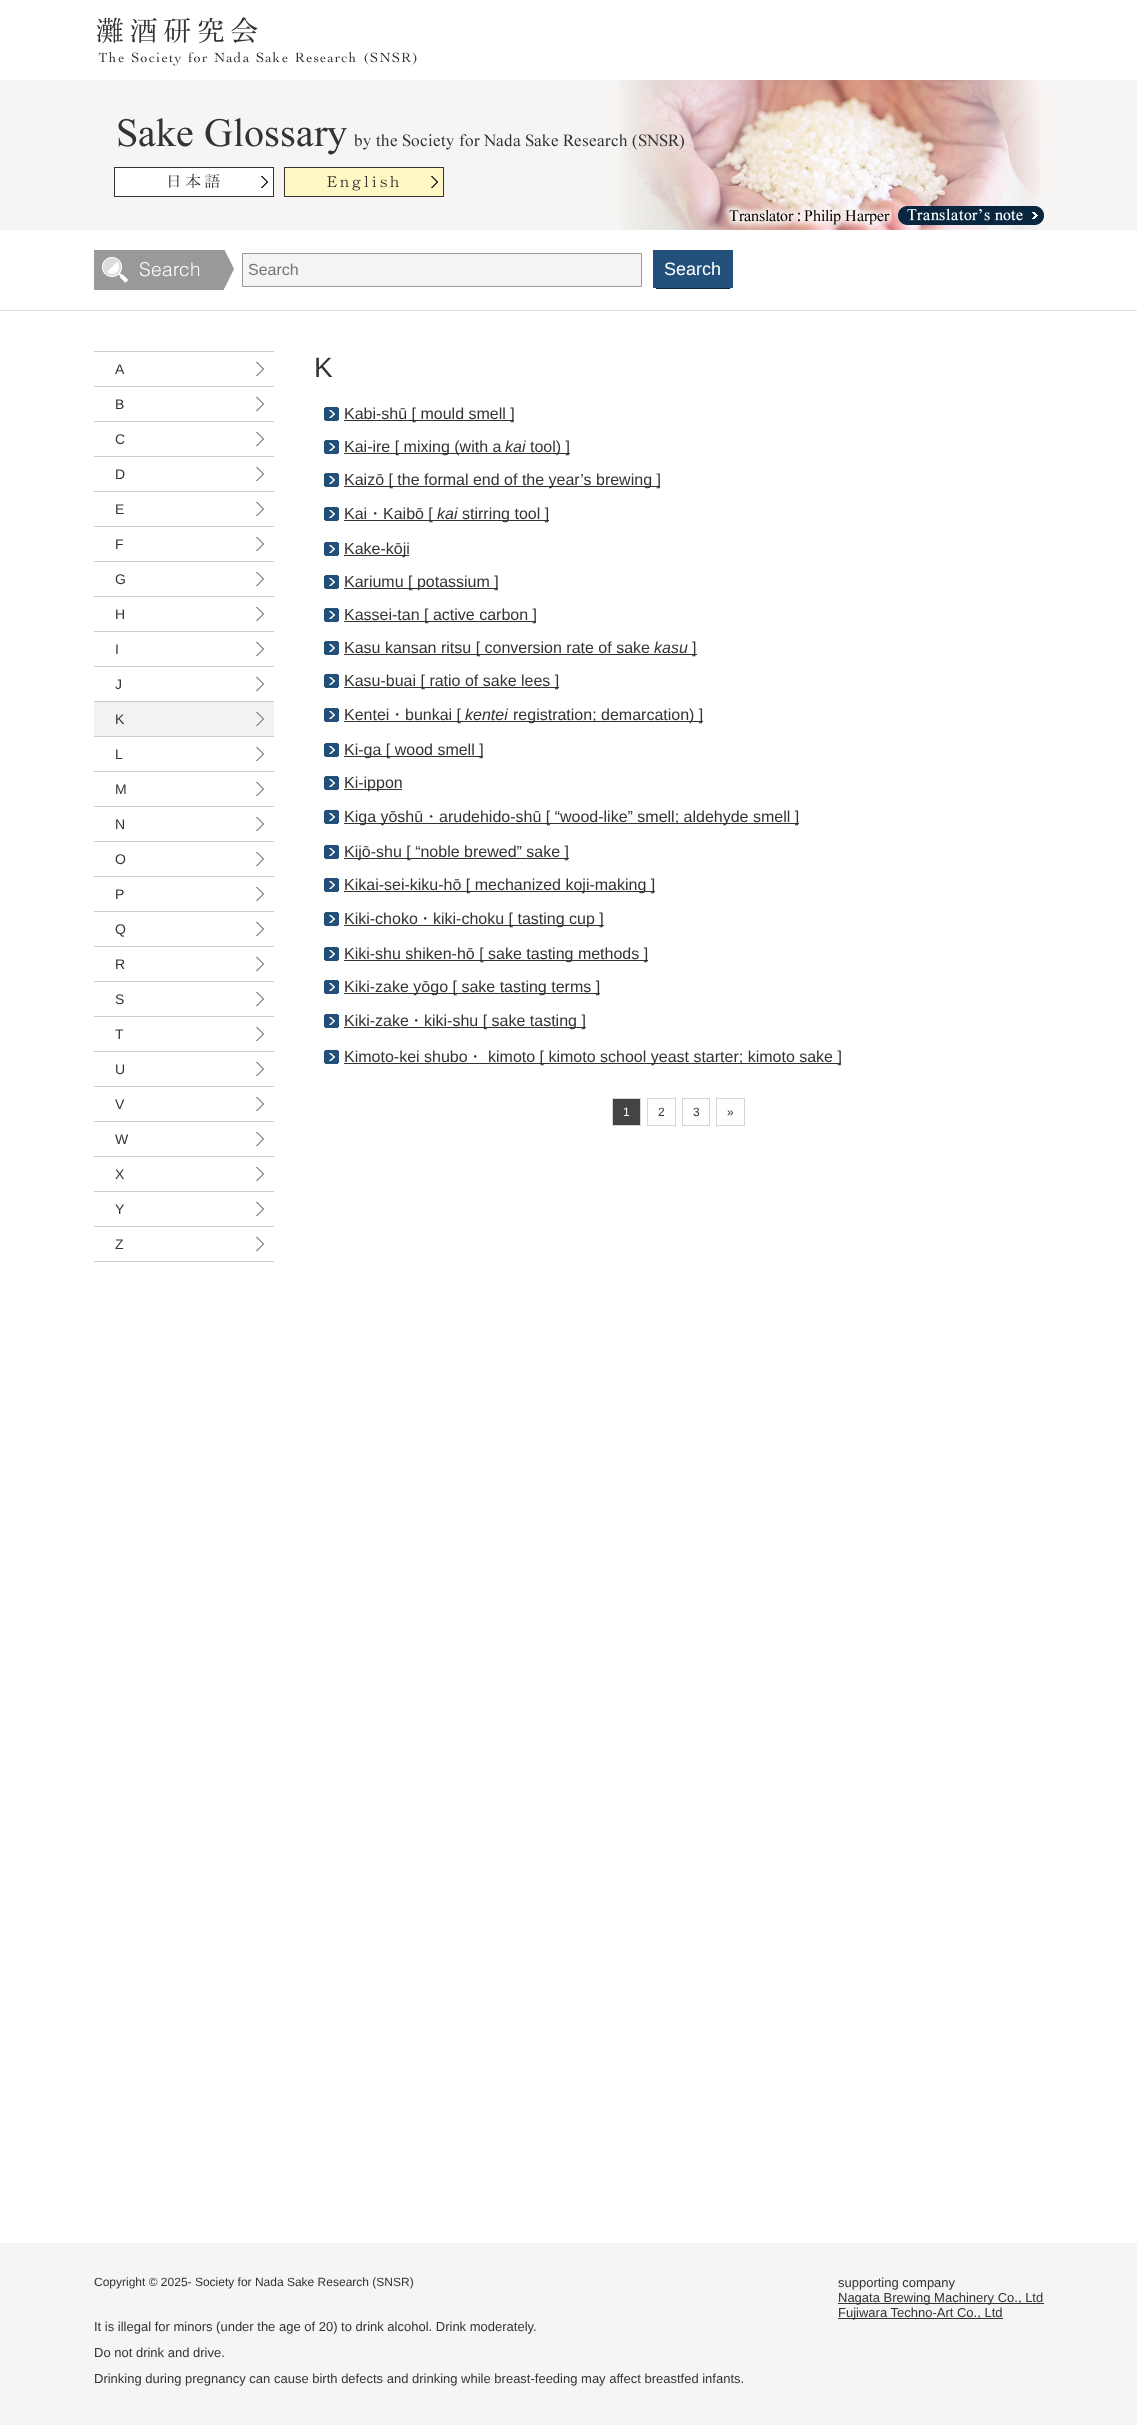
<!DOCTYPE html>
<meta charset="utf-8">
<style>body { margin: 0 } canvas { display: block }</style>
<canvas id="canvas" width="1137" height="2425"></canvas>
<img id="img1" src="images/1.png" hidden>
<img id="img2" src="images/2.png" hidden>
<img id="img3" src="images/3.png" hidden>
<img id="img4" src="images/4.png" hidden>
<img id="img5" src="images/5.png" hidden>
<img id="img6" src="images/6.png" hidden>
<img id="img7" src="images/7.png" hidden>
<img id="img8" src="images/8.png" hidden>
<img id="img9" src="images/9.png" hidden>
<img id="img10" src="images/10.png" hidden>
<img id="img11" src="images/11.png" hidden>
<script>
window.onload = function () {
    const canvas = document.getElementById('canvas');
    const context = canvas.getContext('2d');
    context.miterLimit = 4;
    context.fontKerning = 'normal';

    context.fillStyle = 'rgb(255, 255, 255)';
    context.fillRect(0, 0, 1137, 2425);
    context.fillStyle = 'rgb(224, 220, 219)';
    context.fillRect(0, 310, 1137, 1);
    context.drawImage(document.getElementById('img1'), 96, 17, 321, 49);
    context.fillStyle = 'rgb(247, 245, 243)';
    context.fillRect(0, 80, 1137, 150);
    context.drawImage(document.getElementById('img2'), 620, 80, 421, 150);
    context.drawImage(document.getElementById('img3'), 118, 118, 566, 37);
    context.drawImage(document.getElementById('img4'), 114, 167, 160, 30);
    context.drawImage(document.getElementById('img5'), 284, 167, 160, 30);
    context.drawImage(document.getElementById('img6'), 722, 203, 170, 27);
    context.drawImage(document.getElementById('img7'), 894, 206, 150, 19);
    context.drawImage(document.getElementById('img8'), 94, 250, 140, 40);
    context.fillStyle = 'rgb(244, 244, 244)';
    context.beginPath();
    context.rect(242.5, 253.5, 399, 33);
    context.fill();
    context.strokeStyle = 'rgb(153, 153, 153)';
    context.stroke();
    context.fillStyle = 'rgb(34, 80, 122)';
    context.fillRect(653, 250, 80, 38);
    context.fillStyle = 'rgb(9, 38, 65)';
    context.fillRect(656, 288, 74, 1);
    context.fillStyle = 'rgb(204, 204, 204)';
    context.fillRect(94, 1261, 180, 1);
    context.drawImage(document.getElementById('img9'), 256, 362, 8, 14);
    context.fillRect(94, 351, 180, 1);
    context.drawImage(document.getElementById('img9'), 256, 397, 8, 14);
    context.fillRect(94, 386, 180, 1);
    context.drawImage(document.getElementById('img9'), 256, 432, 8, 14);
    context.fillRect(94, 421, 180, 1);
    context.drawImage(document.getElementById('img9'), 256, 467, 8, 14);
    context.fillRect(94, 456, 180, 1);
    context.drawImage(document.getElementById('img9'), 256, 502, 8, 14);
    context.fillRect(94, 491, 180, 1);
    context.drawImage(document.getElementById('img9'), 256, 537, 8, 14);
    context.fillRect(94, 526, 180, 1);
    context.drawImage(document.getElementById('img9'), 256, 572, 8, 14);
    context.fillRect(94, 561, 180, 1);
    context.drawImage(document.getElementById('img9'), 256, 607, 8, 14);
    context.fillRect(94, 596, 180, 1);
    context.drawImage(document.getElementById('img9'), 256, 642, 8, 14);
    context.fillRect(94, 631, 180, 1);
    context.drawImage(document.getElementById('img9'), 256, 677, 8, 14);
    context.fillRect(94, 666, 180, 1);
    context.fillStyle = 'rgb(242, 242, 242)';
    context.fillRect(94, 702, 180, 34);
    context.drawImage(document.getElementById('img10'), 256, 712, 8, 14);
    context.fillStyle = 'rgb(204, 204, 204)';
    context.fillRect(94, 701, 180, 1);
    context.drawImage(document.getElementById('img9'), 256, 747, 8, 14);
    context.fillRect(94, 736, 180, 1);
    context.drawImage(document.getElementById('img9'), 256, 782, 8, 14);
    context.fillRect(94, 771, 180, 1);
    context.drawImage(document.getElementById('img9'), 256, 817, 8, 14);
    context.fillRect(94, 806, 180, 1);
    context.drawImage(document.getElementById('img9'), 256, 852, 8, 14);
    context.fillRect(94, 841, 180, 1);
    context.drawImage(document.getElementById('img9'), 256, 887, 8, 14);
    context.fillRect(94, 876, 180, 1);
    context.drawImage(document.getElementById('img9'), 256, 922, 8, 14);
    context.fillRect(94, 911, 180, 1);
    context.drawImage(document.getElementById('img9'), 256, 957, 8, 14);
    context.fillRect(94, 946, 180, 1);
    context.drawImage(document.getElementById('img9'), 256, 992, 8, 14);
    context.fillRect(94, 981, 180, 1);
    context.drawImage(document.getElementById('img9'), 256, 1027, 8, 14);
    context.fillRect(94, 1016, 180, 1);
    context.drawImage(document.getElementById('img9'), 256, 1062, 8, 14);
    context.fillRect(94, 1051, 180, 1);
    context.drawImage(document.getElementById('img9'), 256, 1097, 8, 14);
    context.fillRect(94, 1086, 180, 1);
    context.drawImage(document.getElementById('img9'), 256, 1132, 8, 14);
    context.fillRect(94, 1121, 180, 1);
    context.drawImage(document.getElementById('img9'), 256, 1167, 8, 14);
    context.fillRect(94, 1156, 180, 1);
    context.drawImage(document.getElementById('img9'), 256, 1202, 8, 14);
    context.fillRect(94, 1191, 180, 1);
    context.drawImage(document.getElementById('img9'), 256, 1237, 8, 14);
    context.fillRect(94, 1226, 180, 1);
    context.drawImage(document.getElementById('img11'), 324, 407, 15, 14);
    context.fillStyle = 'rgb(51, 51, 51)';
    context.fillRect(344, 420, 170, 1);
    context.drawImage(document.getElementById('img11'), 324, 440, 15, 14);
    context.fillRect(344, 453, 226, 1);
    context.drawImage(document.getElementById('img11'), 324, 473, 15, 14);
    context.fillRect(344, 486, 316, 1);
    context.drawImage(document.getElementById('img11'), 324, 507, 15, 14);
    context.fillRect(344, 520, 205, 1);
    context.drawImage(document.getElementById('img11'), 324, 542, 15, 14);
    context.fillRect(344, 555, 65, 1);
    context.drawImage(document.getElementById('img11'), 324, 575, 15, 14);
    context.fillRect(344, 588, 154, 1);
    context.drawImage(document.getElementById('img11'), 324, 608, 15, 14);
    context.fillRect(344, 621, 192, 1);
    context.drawImage(document.getElementById('img11'), 324, 641, 15, 14);
    context.fillRect(344, 654, 353, 1);
    context.drawImage(document.getElementById('img11'), 324, 674, 15, 14);
    context.fillRect(344, 687, 215, 1);
    context.drawImage(document.getElementById('img11'), 324, 708, 15, 14);
    context.fillRect(344, 721, 359, 1);
    context.drawImage(document.getElementById('img11'), 324, 743, 15, 14);
    context.fillRect(344, 756, 139, 1);
    context.drawImage(document.getElementById('img11'), 324, 776, 15, 14);
    context.fillRect(344, 789, 58, 1);
    context.drawImage(document.getElementById('img11'), 324, 810, 15, 14);
    context.fillRect(344, 823, 455, 1);
    context.drawImage(document.getElementById('img11'), 324, 845, 15, 14);
    context.fillRect(344, 858, 225, 1);
    context.drawImage(document.getElementById('img11'), 324, 878, 15, 14);
    context.fillRect(344, 891, 311, 1);
    context.drawImage(document.getElementById('img11'), 324, 912, 15, 14);
    context.fillRect(344, 925, 260, 1);
    context.drawImage(document.getElementById('img11'), 324, 947, 15, 14);
    context.fillRect(344, 960, 304, 1);
    context.drawImage(document.getElementById('img11'), 324, 980, 15, 14);
    context.fillRect(344, 993, 256, 1);
    context.drawImage(document.getElementById('img11'), 324, 1014, 15, 14);
    context.fillRect(344, 1027, 242, 1);
    context.drawImage(document.getElementById('img11'), 324, 1050, 15, 14);
    context.fillRect(344, 1063, 497, 1);
    context.fillStyle = 'rgb(68, 68, 68)';
    context.beginPath();
    context.rect(612.5, 1098.5, 28, 27);
    context.fill();
    context.strokeStyle = 'rgb(214, 214, 214)';
    context.stroke();
    context.strokeRect(647.5, 1098.5, 28, 27);
    context.strokeRect(682.5, 1098.5, 27, 27);
    context.strokeRect(716.5, 1098.5, 28, 27);
    context.fillStyle = 'rgb(247, 245, 243)';
    context.fillRect(0, 2243, 1137, 182);
    context.fillStyle = 'rgb(51, 51, 51)';
    context.fillRect(838, 2303, 206, 1);
    context.fillRect(838, 2318, 165, 1);
    context.font = '16px Liberation Sans';
    context.fillStyle = 'rgb(117, 117, 117)';
    context.fillText('Search', 248, 275);
    context.font = '18px Liberation Sans';
    context.fillStyle = 'rgb(255, 255, 255)';
    context.fillText('Search', 664, 275);
    context.font = '14px Liberation Sans';
    context.fillStyle = 'rgb(51, 51, 51)';
    context.fillText('A', 115, 374);
    context.fillText('B', 115, 409);
    context.fillText('C', 115, 444);
    context.fillText('D', 115, 479);
    context.fillText('E', 115, 514);
    context.fillText('F', 115, 549);
    context.fillText('G', 115, 584);
    context.fillText('H', 115, 619);
    context.fillText('I', 115, 654);
    context.fillText('J', 115, 689);
    context.fillText('K', 115, 724);
    context.fillText('L', 115, 759);
    context.fillText('M', 115, 794);
    context.fillText('N', 115, 829);
    context.fillText('O', 115, 864);
    context.fillText('P', 115, 899);
    context.fillText('Q', 115, 934);
    context.fillText('R', 115, 969);
    context.fillText('S', 115, 1004);
    context.fillText('T', 115, 1039);
    context.fillText('U', 115, 1074);
    context.fillText('V', 115, 1109);
    context.fillText('W', 115, 1144);
    context.fillText('X', 115, 1179);
    context.fillText('Y', 115, 1214);
    context.fillText('Z', 115, 1249);
    context.font = '28px Liberation Sans';
    context.fillText('K', 314, 377);
    context.font = '16px Liberation Sans';
    context.fillText('Kabi-shū [ mould smell ]', 344, 419);
    context.fillText('Kai-ire [ mixing (with a', 344, 452);
    context.font = 'italic 16px Liberation Sans';
    context.fillText('kai', 505, 452);
    context.font = '16px Liberation Sans';
    context.fillText('tool) ]', 530, 452);
    context.fillText('Kaizō [ the formal end of the year’s brewing ]', 344, 485);
    context.fillText('Kai', 344, 519);
    context.font = '500 16px WenQuanYi Zen Hei';
    context.fillText('・', 367, 519);
    context.font = '16px Liberation Sans';
    context.fillText('Kaibō [', 383, 519);
    context.font = 'italic 16px Liberation Sans';
    context.fillText('kai', 437, 519);
    context.font = '16px Liberation Sans';
    context.fillText('stirring tool ]', 462, 519);
    context.fillText('Kake-kōji', 344, 554);
    context.fillText('Kariumu [ potassium ]', 344, 587);
    context.fillText('Kassei-tan [ active carbon ]', 344, 620);
    context.fillText('Kasu kansan ritsu [ conversion rate of sake', 344, 653);
    context.font = 'italic 16px Liberation Sans';
    context.fillText('kasu', 654, 653);
    context.font = '16px Liberation Sans';
    context.fillText(']', 692, 653);
    context.fillText('Kasu-buai [ ratio of sake lees ]', 344, 686);
    context.fillText('Kentei', 344, 720);
    context.font = '500 16px WenQuanYi Zen Hei';
    context.fillText('・', 389, 720);
    context.font = '16px Liberation Sans';
    context.fillText('bunkai [', 405, 720);
    context.font = 'italic 16px Liberation Sans';
    context.fillText('kentei', 465, 720);
    context.font = '16px Liberation Sans';
    context.fillText('registration; demarcation) ]', 513, 720);
    context.fillText('Ki-ga [ wood smell ]', 344, 755);
    context.fillText('Ki-ippon', 344, 788);
    context.fillText('Kiga yōshū', 344, 822);
    context.font = '500 16px WenQuanYi Zen Hei';
    context.fillText('・', 423, 822);
    context.font = '16px Liberation Sans';
    context.fillText('arudehido-shū [ “wood-like” smell; aldehyde smell ]', 439, 822);
    context.fillText('Kijō-shu [ “noble brewed” sake ]', 344, 857);
    context.fillText('Kikai-sei-kiku-hō [ mechanized koji-making ]', 344, 890);
    context.fillText('Kiki-choko', 344, 924);
    context.font = '500 16px WenQuanYi Zen Hei';
    context.fillText('・', 417, 924);
    context.font = '16px Liberation Sans';
    context.fillText('kiki-choku [ tasting cup ]', 433, 924);
    context.fillText('Kiki-shu shiken-hō [ sake tasting methods ]', 344, 959);
    context.fillText('Kiki-zake yōgo [ sake tasting terms ]', 344, 992);
    context.fillText('Kiki-zake', 344, 1026);
    context.font = '500 16px WenQuanYi Zen Hei';
    context.fillText('・', 408, 1026);
    context.font = '16px Liberation Sans';
    context.fillText('kiki-shu [ sake tasting ]', 424, 1026);
    context.fillText('Kimoto-kei shubo', 344, 1062);
    context.font = '500 16px WenQuanYi Zen Hei';
    context.fillText('・', 467, 1062);
    context.font = '16px Liberation Sans';
    context.fillText('kimoto [ kimoto school yeast starter; kimoto sake ]', 488, 1062);
    context.font = '12px Liberation Sans';
    context.fillStyle = 'rgb(255, 255, 255)';
    context.fillText('1', 623, 1116);
    context.fillStyle = 'rgb(51, 51, 51)';
    context.fillText('2', 658, 1116);
    context.fillText('3', 693, 1116);
    context.fillText('»', 727, 1116);
    context.fillText('Copyright © 2025- Society for Nada Sake Research (SNSR)', 94, 2286);
    context.font = '13px Liberation Sans';
    context.fillText('supporting company', 838, 2287);
    context.fillText('Nagata Brewing Machinery Co., Ltd', 838, 2302);
    context.fillText('Fujiwara Techno-Art Co., Ltd', 838, 2317);
    context.fillText('It is illegal for minors (under the age of 20) to drink alcohol. Drink moderately.', 94, 2331);
    context.fillText('Do not drink and drive.', 94, 2357);
    context.fillText('Drinking during pregnancy can cause birth defects and drinking while breast-feeding may affect breastfed infants.', 94, 2383);
};
</script>
